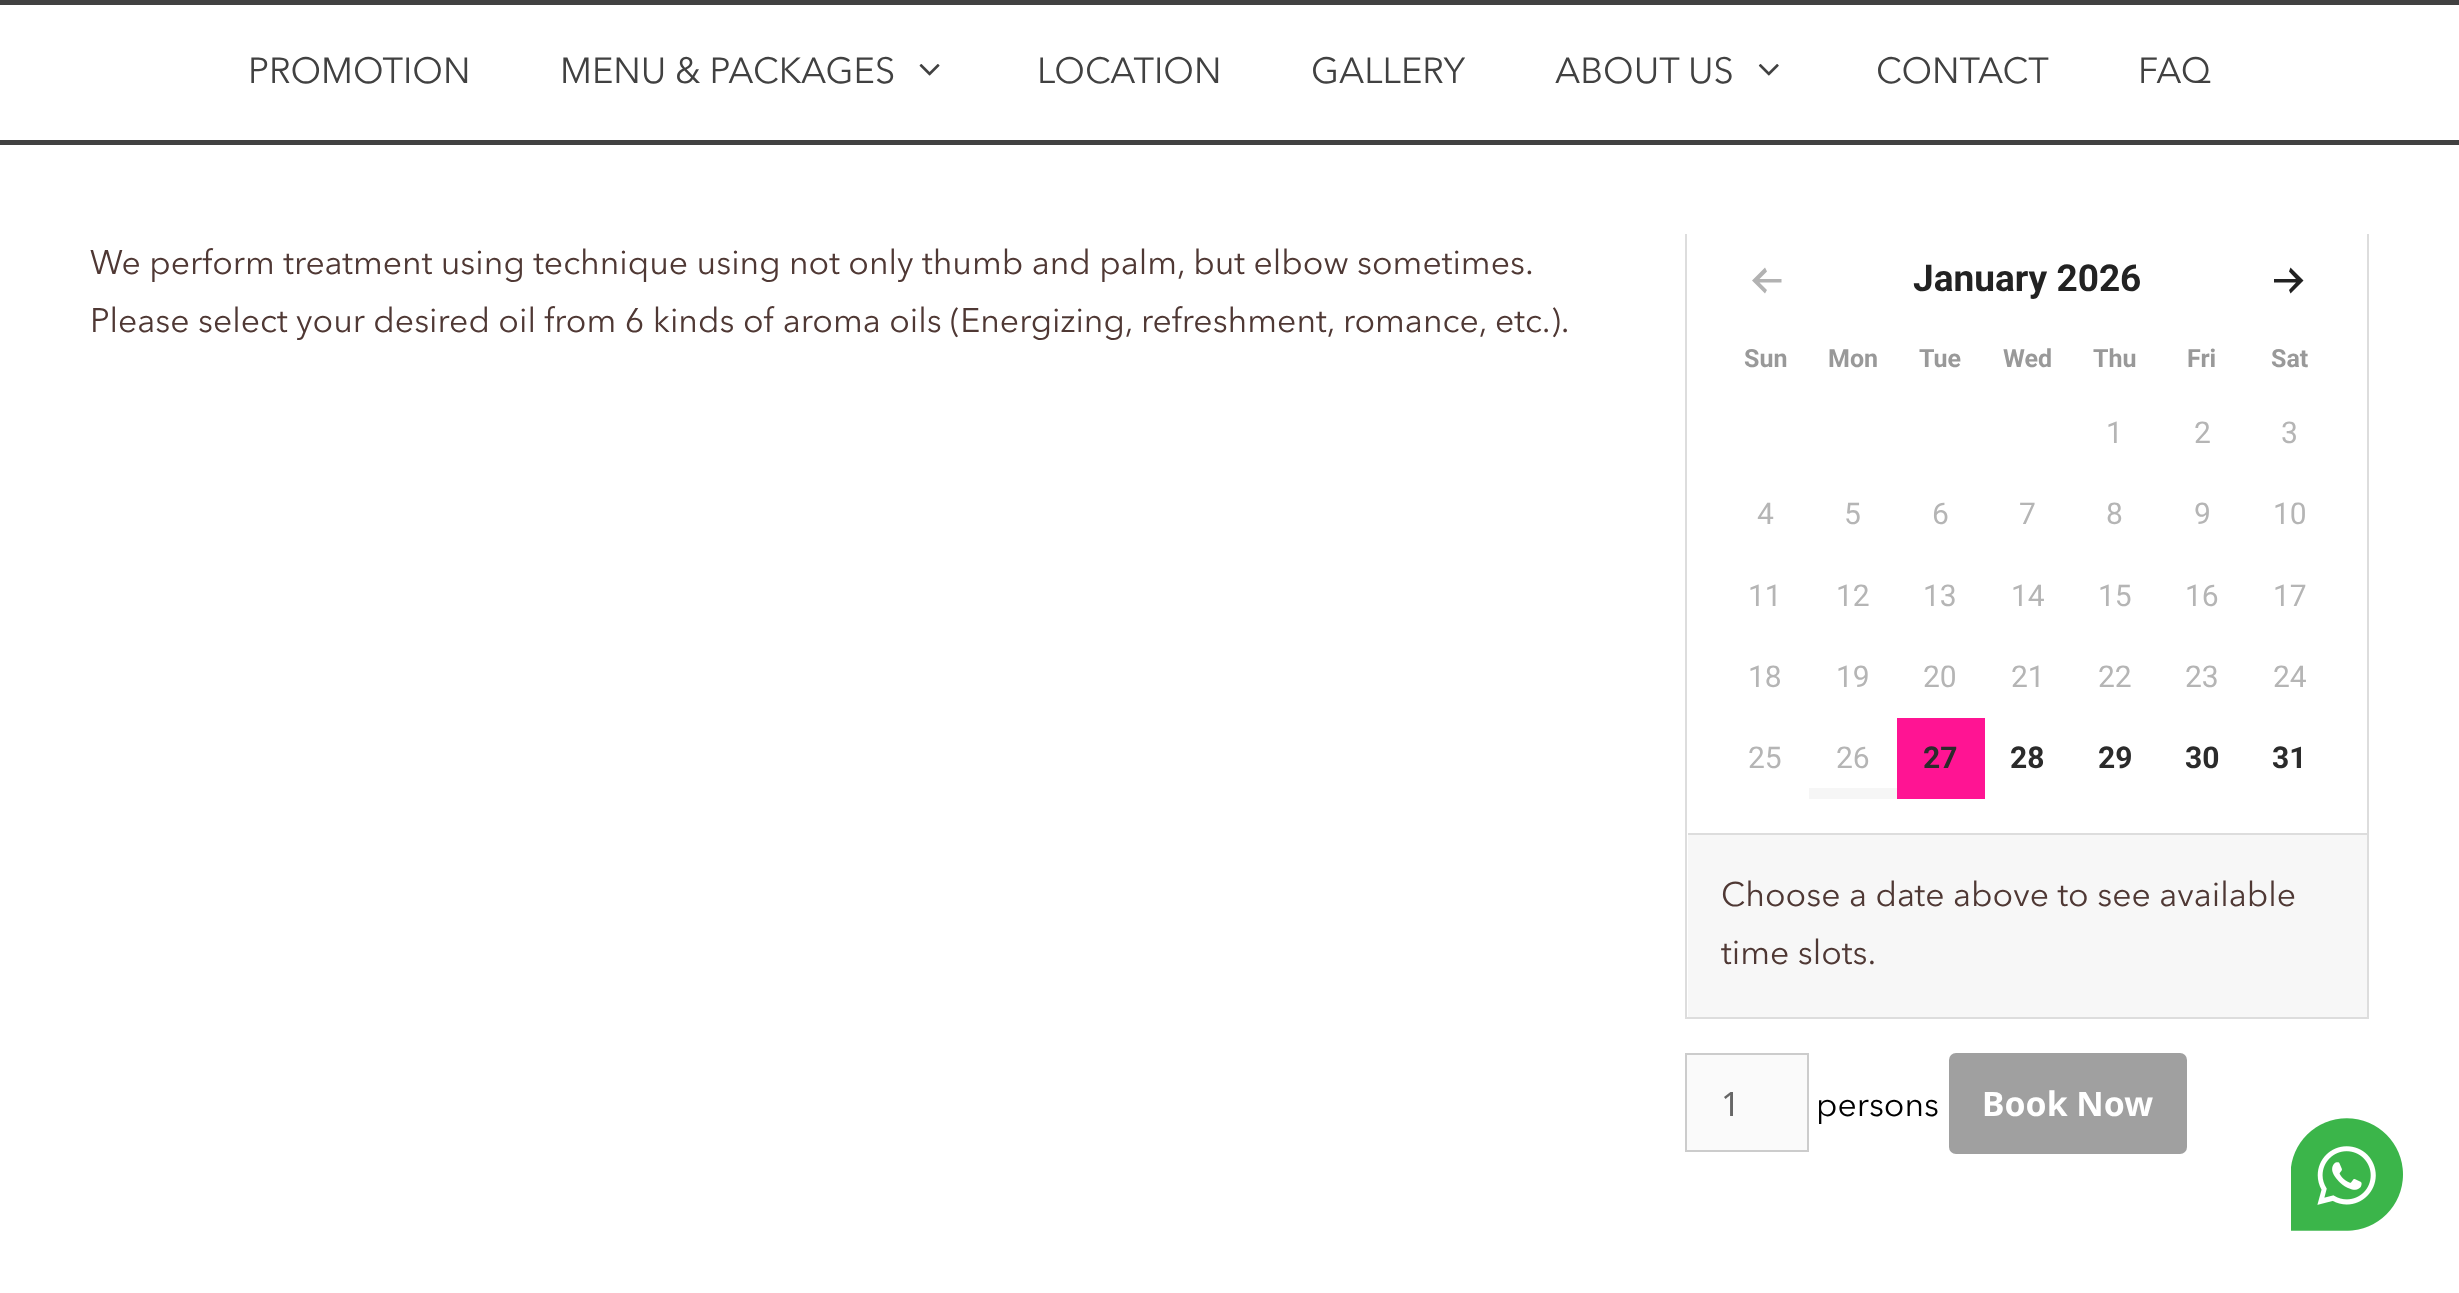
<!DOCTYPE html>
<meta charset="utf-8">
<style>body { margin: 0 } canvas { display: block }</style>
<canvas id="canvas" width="2459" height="1293"></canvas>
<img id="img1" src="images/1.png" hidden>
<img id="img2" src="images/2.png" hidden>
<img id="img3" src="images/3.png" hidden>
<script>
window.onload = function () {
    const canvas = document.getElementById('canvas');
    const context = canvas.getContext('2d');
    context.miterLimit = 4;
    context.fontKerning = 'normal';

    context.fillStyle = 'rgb(255, 255, 255)';
    context.fillRect(0, 0, 2459, 1293);
    context.strokeStyle = 'rgb(221, 221, 221)';
    context.lineWidth = 2;
    context.strokeRect(1686, 201, 682, 817);
    context.fillRect(1685, 200, 684, 34);
    context.fillStyle = 'rgb(65, 65, 65)';
    context.fillRect(0, 0, 2459, 5);
    context.fillRect(0, 140, 2459, 5);
    context.drawImage(document.getElementById('img1'), 919, 64, 21, 12);
    context.drawImage(document.getElementById('img2'), 1758, 64, 21, 12);
    context.fillStyle = 'rgb(178, 178, 178)';
    context.beginPath();
    context.moveTo(1781.5, 279);
    context.lineTo(1781.5, 282.5);
    context.lineTo(1759.5, 282.5);
    context.lineTo(1767, 290);
    context.lineTo(1765, 293.5);
    context.lineTo(1752, 280.5);
    context.lineTo(1765, 267.5);
    context.lineTo(1767, 271.5);
    context.lineTo(1759.5, 279);
    context.closePath();
    context.fill();
    context.fillStyle = 'rgb(34, 34, 34)';
    context.beginPath();
    context.moveTo(2274, 282.5);
    context.lineTo(2274, 279);
    context.lineTo(2296, 279);
    context.lineTo(2289, 271.5);
    context.lineTo(2290.5, 267.5);
    context.lineTo(2303.5, 280.5);
    context.lineTo(2290.5, 293.5);
    context.lineTo(2289, 290);
    context.lineTo(2296, 282.5);
    context.closePath();
    context.fill();
    context.fillStyle = 'rgb(246, 246, 246)';
    context.fillRect(1809, 788, 88, 11);
    context.fillStyle = 'rgb(255, 20, 147)';
    context.fillRect(1897, 718, 88, 81);
    context.fillStyle = 'rgba(0, 0, 0, 0.03)';
    context.fillRect(1688, 835, 679, 182);
    context.fillStyle = 'rgb(221, 221, 221)';
    context.fillRect(1688, 833, 679, 2);
    context.fillStyle = 'rgb(250, 250, 250)';
    context.beginPath();
    context.rect(1686, 1054, 122, 97);
    context.fill();
    context.strokeStyle = 'rgb(204, 204, 204)';
    context.stroke();
    context.fillStyle = 'rgb(160, 160, 160)';
    context.beginPath();
    context.roundRect(1949, 1053, 238, 101, 7);
    context.fill();
    context.drawImage(document.getElementById('img3'), 2291, 1118, 112, 113);
    context.font = '36px Avenir Next';
    context.fillStyle = 'rgb(65, 65, 65)';
    context.fillText('PROMOTION', 248, 83);
    context.fillText('MENU & PACKAGES', 560, 83);
    context.fillText('LOCATION', 1037, 83);
    context.fillText('GALLERY', 1311, 83);
    context.fillText('ABOUT US', 1555, 83);
    context.fillText('CONTACT', 1876, 83);
    context.fillText('FAQ', 2138, 83);
    context.font = '33.75px Avenir Next';
    context.fillStyle = 'rgb(79, 56, 52)';
    context.fillText('We perform treatment using technique using not only thumb and palm, but elbow sometimes.', 90, 274);
    context.fillText('Please select your desired oil from 6 kinds of aroma oils (Energizing, refreshment, romance, etc.).', 90, 332);
    context.font = 'bold 37px Roboto';
    context.fillStyle = 'rgb(34, 34, 34)';
    context.fillText('January 2026', 1913, 291);
    context.font = 'bold 25px Roboto';
    context.fillStyle = 'rgb(153, 153, 153)';
    context.fillText('Sun', 1744, 367);
    context.fillText('Mon', 1828, 367);
    context.fillText('Tue', 1919, 367);
    context.fillText('Wed', 2003, 367);
    context.fillText('Thu', 2093, 367);
    context.fillText('Fri', 2187, 367);
    context.fillText('Sat', 2271, 367);
    context.font = '30px Roboto';
    context.fillStyle = 'rgb(181, 181, 181)';
    context.fillText('1', 2106, 443);
    context.fillText('2', 2194, 443);
    context.fillText('3', 2281, 443);
    context.fillText('4', 1757, 524);
    context.fillText('5', 1844, 524);
    context.fillText('6', 1932, 524);
    context.fillText('7', 2019, 524);
    context.fillText('8', 2106, 524);
    context.fillText('9', 2194, 524);
    context.fillText('10', 2273, 524);
    context.fillText('11', 1748, 606);
    context.fillText('12', 1836, 606);
    context.fillText('13', 1923, 606);
    context.fillText('14', 2011, 606);
    context.fillText('15', 2098, 606);
    context.fillText('16', 2185, 606);
    context.fillText('17', 2273, 606);
    context.fillText('18', 1748, 687);
    context.fillText('19', 1836, 687);
    context.fillText('20', 1923, 687);
    context.fillText('21', 2011, 687);
    context.fillText('22', 2098, 687);
    context.fillText('23', 2185, 687);
    context.fillText('24', 2273, 687);
    context.fillText('25', 1748, 768);
    context.fillText('26', 1836, 768);
    context.font = 'bold 30px Roboto';
    context.fillStyle = 'rgb(43, 43, 43)';
    context.fillText('27', 1923, 768);
    context.fillText('28', 2010, 768);
    context.fillText('29', 2098, 768);
    context.fillText('30', 2185, 768);
    context.fillText('31', 2272, 768);
    context.font = '33.75px Avenir Next';
    context.fillStyle = 'rgb(79, 56, 52)';
    context.fillText('Choose a date above to see available', 1721, 906);
    context.fillText('time slots.', 1721, 964);
    context.font = '33.75px Noto Sans';
    context.fillStyle = 'rgb(102, 102, 102)';
    context.fillText('1', 1721, 1116);
    context.font = '33.75px Avenir Next';
    context.fillStyle = 'rgb(0, 0, 0)';
    context.fillText('persons', 1816, 1116);
    context.font = 'bold 33.75px Noto Sans';
    context.fillStyle = 'rgb(255, 255, 255)';
    context.fillText('Book Now', 1982, 1116);
};
</script>
